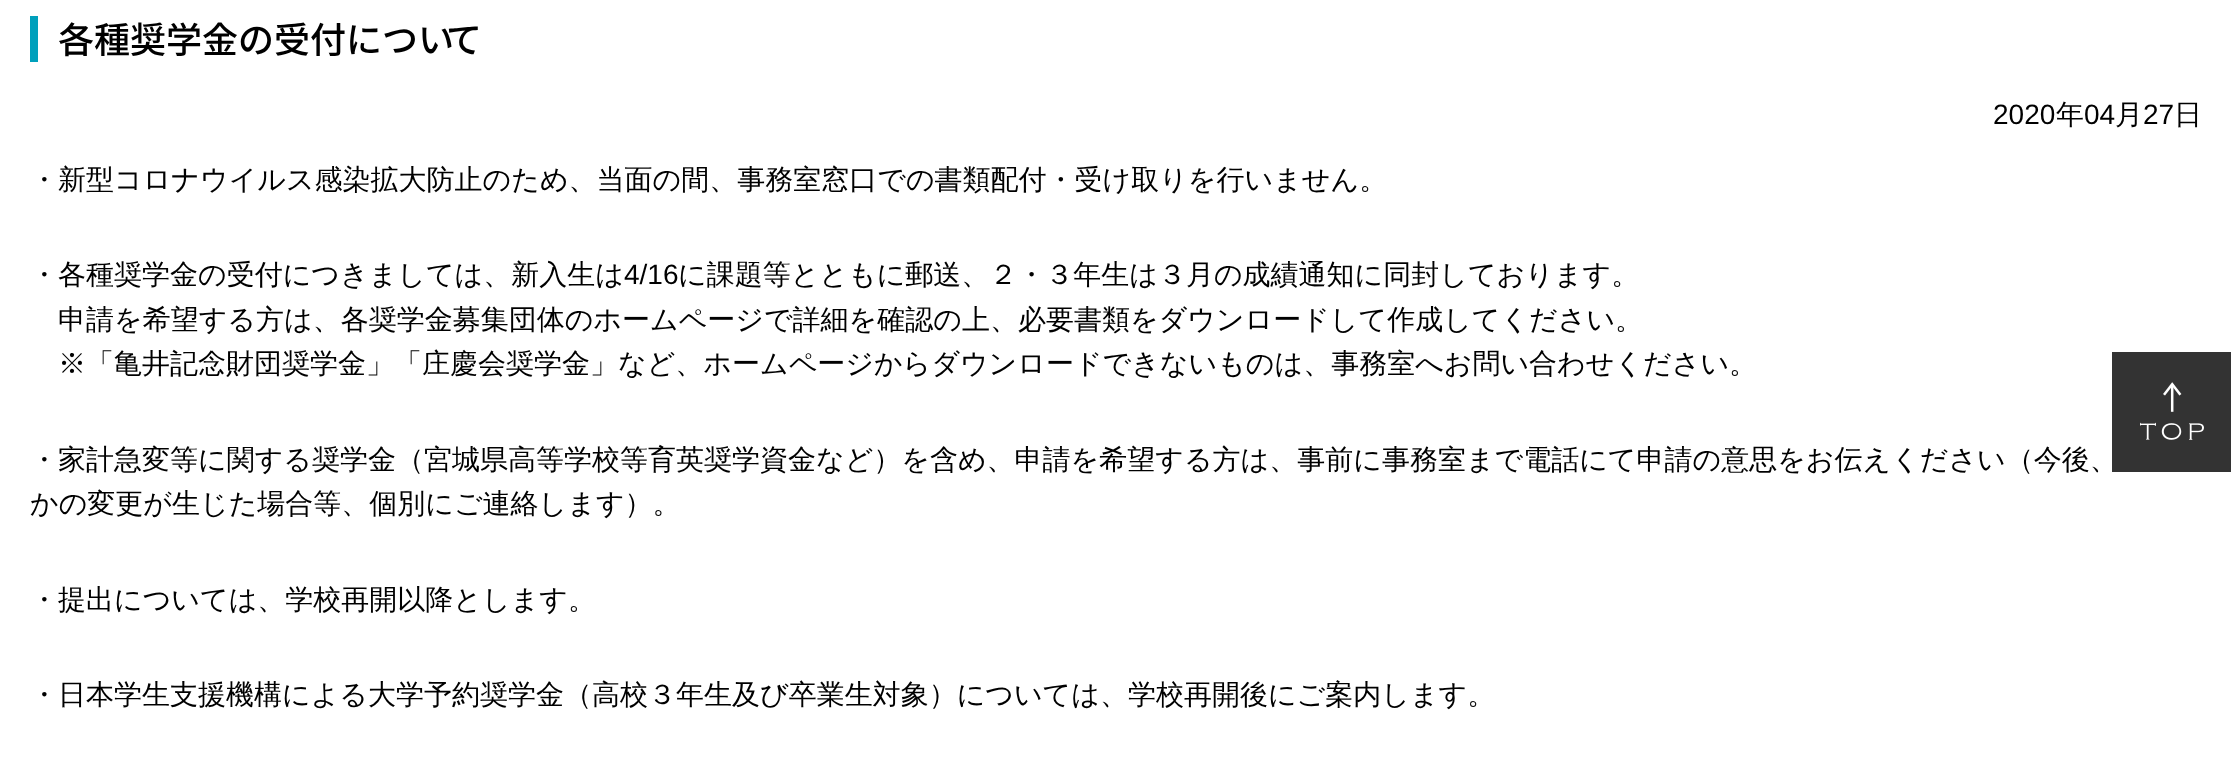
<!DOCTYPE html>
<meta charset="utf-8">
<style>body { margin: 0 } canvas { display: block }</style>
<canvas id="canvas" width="2231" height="771"></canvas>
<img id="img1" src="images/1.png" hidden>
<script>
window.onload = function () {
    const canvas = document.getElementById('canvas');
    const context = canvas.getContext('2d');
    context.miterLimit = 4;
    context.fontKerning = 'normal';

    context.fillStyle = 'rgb(255, 255, 255)';
    context.fillRect(0, 0, 2231, 771);
    context.fillStyle = 'rgb(0, 160, 188)';
    context.fillRect(30, 16, 8, 46);
    context.fillStyle = 'rgb(51, 51, 51)';
    context.fillRect(2112, 352, 119, 120);
    context.drawImage(document.getElementById('img1'), 2140, 382, 64, 58);
    context.font = '500 36px Noto Sans JP';
    context.fillStyle = 'rgb(0, 0, 0)';
    context.fillText('各種奨学金の受付につい', 58, 53);
    context.fillText('て', 446, 53);
    context.font = '28px Liberation Sans';
    context.fillText('2020', 1993, 124);
    context.font = '500 28px WenQuanYi Zen Hei';
    context.fillText('年', 2056, 124);
    context.font = '28px Liberation Sans';
    context.fillText('04', 2084, 124);
    context.font = '500 28px WenQuanYi Zen Hei';
    context.fillText('月', 2115, 124);
    context.font = '28px Liberation Sans';
    context.fillText('27', 2143, 124);
    context.font = '500 28px WenQuanYi Zen Hei';
    context.fillText('日', 2174, 124);
    context.fillText('・新型コロナウイルス感染拡大防止のため、当面の間、事務室窓口での書類配付・受け取りを行いません。', 30, 189);
    context.fillText('・各種奨学金の受付につきましては、新入生は', 30, 284);
    context.font = '28px Liberation Sans';
    context.fillText('4/16', 624, 284);
    context.font = '500 28px WenQuanYi Zen Hei';
    context.fillText('に課題等とともに郵送、２・３年生は３月の成績通知に同封しております。', 678, 284);
    context.fillText('申請を希望する方は、各奨学金募集団体のホームページで詳細を確認の上、必要書類をダウンロードして作成してください。', 58, 329);
    context.fillText('※「亀井記念財団奨学金」「庄慶会奨学金」など、ホームページからダウンロードできないものは、事務室へお問い合わせください。', 58, 373);
    context.fillText('・家計急変等に関する奨学金（宮城県高等学校等育英奨学資金など）を含め、申請を希望する方は、事前に事務室まで電話にて申請の意思をお伝えください（今後、', 30, 469);
    context.fillText('かの変更が生じた場合等、個別にご連絡します）。', 30, 513);
    context.fillText('・提出については、学校再開以降とします。', 30, 609);
    context.fillText('・日本学生支援機構による大学予約奨学金（高校３年生及び卒業生対象）については、学校再開後にご案内します。', 30, 704);
};
</script>
